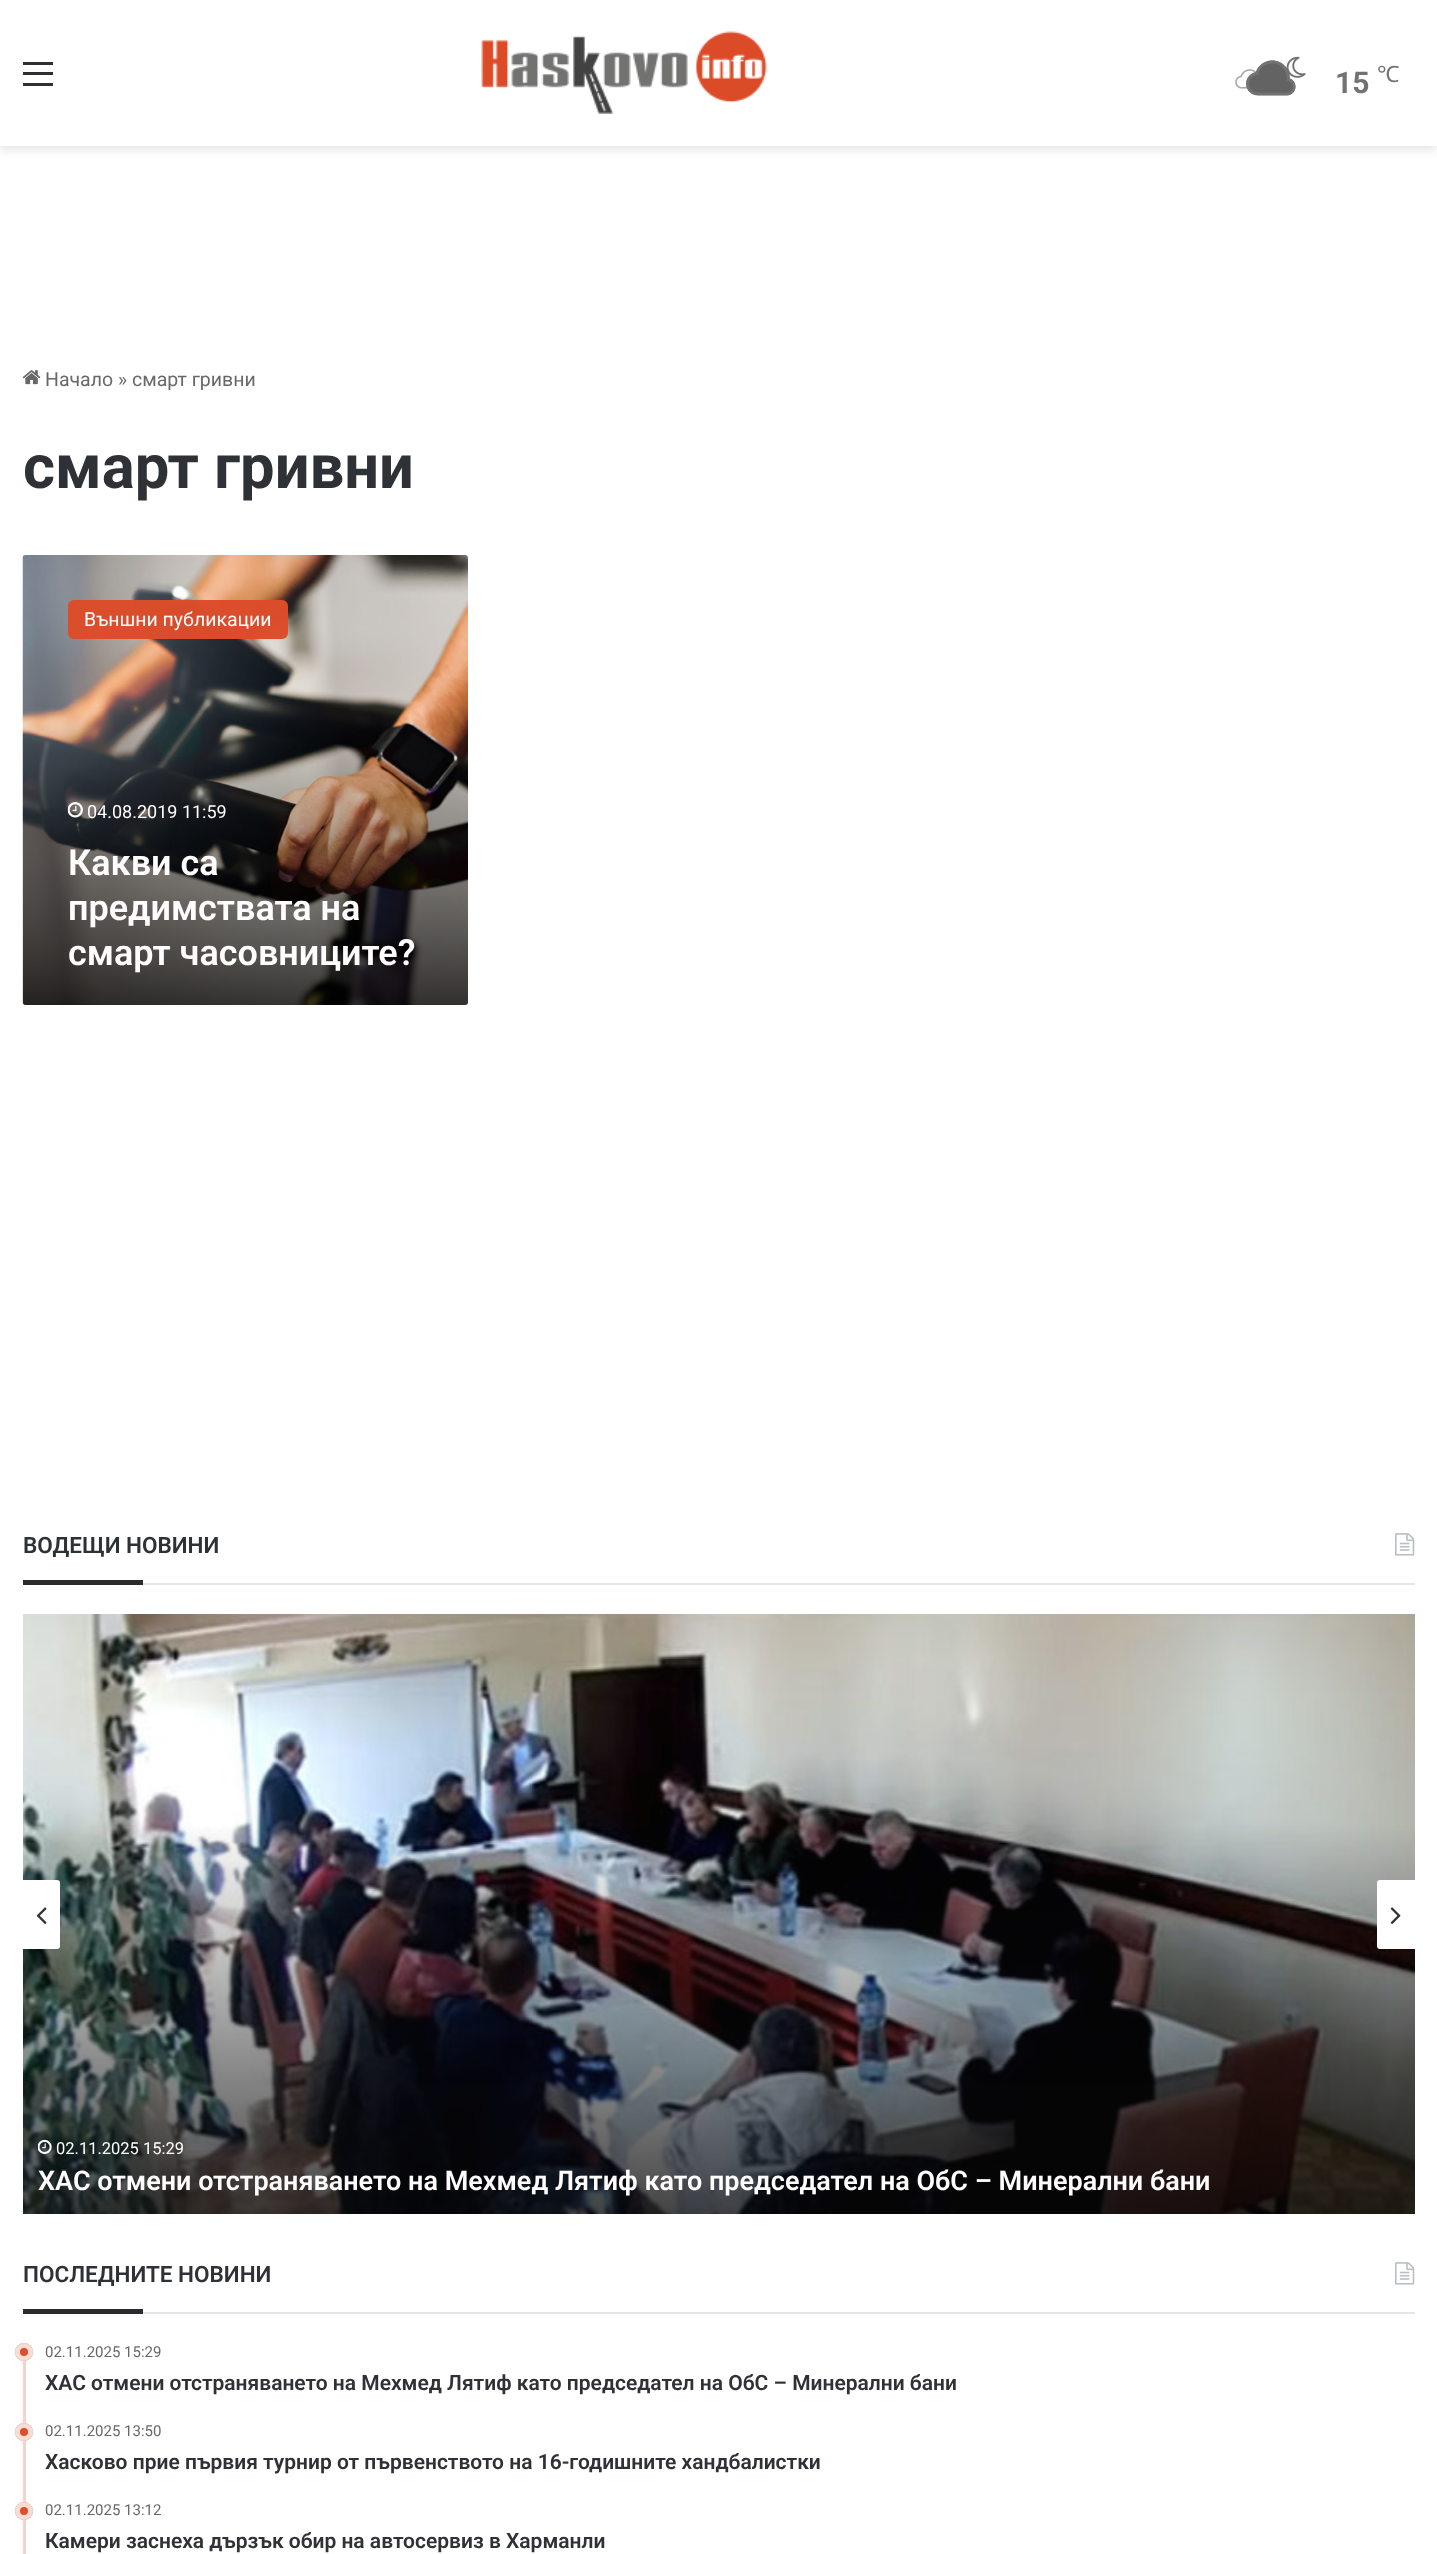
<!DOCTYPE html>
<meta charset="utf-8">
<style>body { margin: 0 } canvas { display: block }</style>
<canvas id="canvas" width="1437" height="2554"></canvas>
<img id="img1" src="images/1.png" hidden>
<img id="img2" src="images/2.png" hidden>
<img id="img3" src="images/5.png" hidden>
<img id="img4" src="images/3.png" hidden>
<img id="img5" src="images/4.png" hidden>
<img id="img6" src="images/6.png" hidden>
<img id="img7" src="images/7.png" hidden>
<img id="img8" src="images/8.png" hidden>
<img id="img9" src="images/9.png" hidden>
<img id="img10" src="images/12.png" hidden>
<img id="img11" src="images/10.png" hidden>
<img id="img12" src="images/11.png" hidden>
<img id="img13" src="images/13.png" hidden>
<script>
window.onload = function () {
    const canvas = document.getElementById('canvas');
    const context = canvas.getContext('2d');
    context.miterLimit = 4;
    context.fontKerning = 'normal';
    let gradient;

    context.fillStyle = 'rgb(255, 255, 255)';
    context.fillRect(0, 0, 1437, 2554);
    context.fillStyle = 'rgba(0, 0, 0, 0.1)';
    context.filter = 'blur(5px)';
    context.beginPath();
    context.rect(0, 5, 1437, 145);
    context.fill();
    context.filter = 'none';
    context.fillStyle = 'rgb(255, 255, 255)';
    context.fillRect(0, 0, 1437, 146);
    context.fillStyle = 'rgb(44, 47, 52)';
    context.fillRect(23, 72, 30, 3);
    context.fillRect(23, 62, 30, 3);
    context.fillRect(23, 83, 30, 3);
    context.drawImage(document.getElementById('img1'), 481, 31, 286, 83);
    context.drawImage(document.getElementById('img2'), 1286, 56, 20, 22);
    context.drawImage(document.getElementById('img3'), 1235, 69, 22, 20);
    context.drawImage(document.getElementById('img4'), 1246, 60, 50, 36);
    context.drawImage(document.getElementById('img5'), 1246, 60, 50, 36);
    context.drawImage(document.getElementById('img6'), 22, 370, 19, 15);
    context.drawImage(document.getElementById('img7'), 22, 555, 446, 450);
    context.fillStyle = 'rgba(220, 77, 43, 0.99)';
    context.beginPath();
    context.roundRect(68, 600, 220, 39, 6);
    context.fill();
    gradient = context.createLinearGradient(245, 713, 245, 1005);
    gradient.addColorStop(0, 'rgba(0, 0, 0, 0)');
    gradient.addColorStop(1, 'rgba(0, 0, 0, 0.74)');
    context.fillStyle = gradient;
    context.beginPath();
    context.roundRect(23, 713, 445, 292, [0, 0, 3, 3]);
    context.fill();
    context.drawImage(document.getElementById('img8'), 68, 802, 15, 16);
    context.fillStyle = 'rgb(230, 230, 230)';
    context.fillRect(143, 1583, 1272, 2);
    context.drawImage(document.getElementById('img9'), 1395, 1533, 20, 23);
    context.fillStyle = 'rgb(41, 43, 47)';
    context.fillRect(23, 1580, 120, 5);
    context.drawImage(document.getElementById('img10'), 23, 1614, 1392, 600);
    context.fillStyle = 'rgb(255, 255, 255)';
    context.beginPath();
    context.roundRect(23, 1880, 37, 69, [0, 3, 3, 0]);
    context.fill();
    context.drawImage(document.getElementById('img11'), 36, 1907, 11, 17);
    context.beginPath();
    context.roundRect(1377, 1880, 38, 69, [3, 0, 0, 3]);
    context.fill();
    context.drawImage(document.getElementById('img12'), 1390, 1907, 11, 17);
    context.drawImage(document.getElementById('img13'), 38, 2139, 14, 15);
    context.fillStyle = 'rgb(230, 230, 230)';
    context.fillRect(143, 2312, 1272, 2);
    context.drawImage(document.getElementById('img9'), 1395, 2262, 20, 23);
    context.fillStyle = 'rgb(41, 43, 47)';
    context.fillRect(23, 2309, 120, 5);
    context.fillStyle = 'rgb(246, 211, 202)';
    context.fillRect(23, 2343, 3, 211);
    context.fillStyle = 'rgb(220, 79, 45)';
    context.beginPath();
    context.arc(24, 2352, 9, 0, 2 * Math.PI);
    context.fill();
    context.beginPath();
    context.arc(24, 2352, 6.5, 0, 2 * Math.PI);
    context.strokeStyle = 'rgba(255, 255, 255, 0.8)';
    context.lineWidth = 5;
    context.stroke();
    context.beginPath();
    context.arc(24, 2432, 9, 0, 2 * Math.PI);
    context.fill();
    context.beginPath();
    context.arc(24, 2432, 6.5, 0, 2 * Math.PI);
    context.stroke();
    context.beginPath();
    context.arc(24, 2511, 9, 0, 2 * Math.PI);
    context.fill();
    context.beginPath();
    context.arc(24, 2511, 6.5, 0, 2 * Math.PI);
    context.stroke();
    context.font = 'bold 30px Roboto';
    context.fillStyle = 'rgb(114, 114, 114)';
    context.fillText('15', 1335, 93);
    context.font = '22.5px Noto Sans';
    context.fillText('℃', 1377, 82);
    context.font = '19.5px Roboto';
    context.fillStyle = 'rgb(104, 104, 104)';
    context.fillText('Начало', 45, 386);
    context.fillText('»', 118, 386);
    context.fillText('смарт гривни', 132, 386);
    context.font = 'bold 61.5px Roboto';
    context.fillStyle = 'rgb(46, 49, 54)';
    context.fillText('смарт гривни', 23, 488);
    context.font = '19.5px Roboto';
    context.fillStyle = 'rgb(255, 253, 253)';
    context.fillText('Външни публикации', 84, 626);
    context.font = '18px Roboto';
    context.fillText('04.08.2019 11:59', 87, 818);
    context.font = '600 36px Roboto';
    context.fillText('Какви са', 68, 875);
    context.fillText('предимствата на', 68, 920);
    context.fillText('смарт часовниците?', 68, 965);
    context.font = '600 22.5px Roboto';
    context.fillStyle = 'rgb(46, 49, 54)';
    context.fillText('ВОДЕЩИ НОВИНИ', 23, 1553);
    context.font = '16.5px Roboto';
    context.fillStyle = 'rgb(255, 253, 253)';
    context.fillText('02.11.2025 15:29', 56, 2154);
    context.font = '600 27px Roboto';
    context.fillText('ХАС отмени отстраняването на Мехмед Лятиф като председател на ОбС – Минерални бани', 38, 2190);
    context.font = '600 22.5px Roboto';
    context.fillStyle = 'rgb(46, 49, 54)';
    context.fillText('ПОСЛЕДНИТЕ НОВИНИ', 23, 2282);
    context.font = '15px Roboto';
    context.fillStyle = 'rgb(104, 104, 104)';
    context.fillText('02.11.2025 15:29', 45, 2357);
    context.font = '600 21px Roboto';
    context.fillStyle = 'rgb(46, 49, 54)';
    context.fillText('ХАС отмени отстраняването на Мехмед Лятиф като председател на ОбС – Минерални бани', 45, 2390);
    context.font = '15px Roboto';
    context.fillStyle = 'rgb(104, 104, 104)';
    context.fillText('02.11.2025 13:50', 45, 2436);
    context.font = '600 21px Roboto';
    context.fillStyle = 'rgb(46, 49, 54)';
    context.fillText('Хасково прие първия турнир от първенството на 16-годишните хандбалистки', 45, 2469);
    context.font = '15px Roboto';
    context.fillStyle = 'rgb(104, 104, 104)';
    context.fillText('02.11.2025 13:12', 45, 2515);
    context.font = '600 21px Roboto';
    context.fillStyle = 'rgb(46, 49, 54)';
    context.fillText('Камери заснеха дързък обир на автосервиз в Харманли', 45, 2548);
};
</script>
